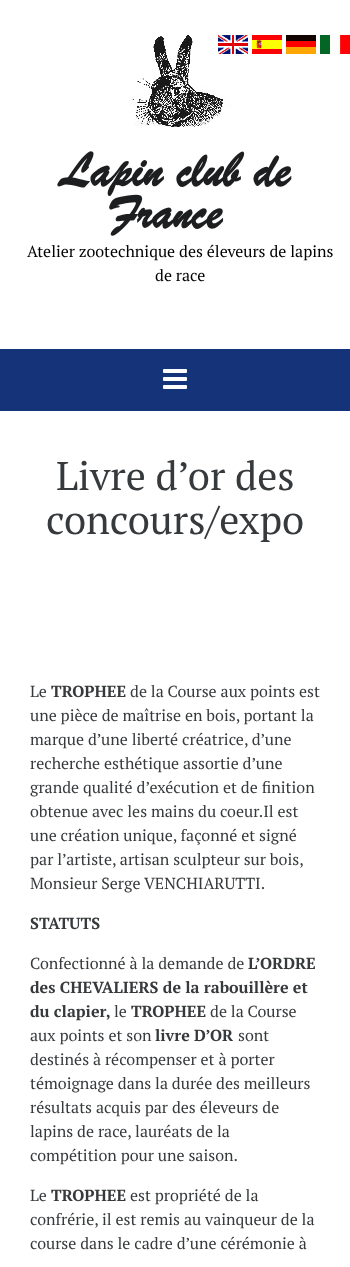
<!DOCTYPE html>
<meta charset="utf-8">
<style>body { margin: 0 } canvas { display: block }</style>
<canvas id="canvas" width="350" height="1267"></canvas>
<img id="img1" src="images/5.png" hidden>
<img id="img2" src="images/1.png" hidden>
<img id="img3" src="images/2.png" hidden>
<img id="img4" src="images/3.png" hidden>
<img id="img5" src="images/4.png" hidden>
<img id="img6" src="images/6.png" hidden>
<script>
window.onload = function () {
    const canvas = document.getElementById('canvas');
    const context = canvas.getContext('2d');
    context.miterLimit = 4;
    context.fontKerning = 'normal';

    context.fillStyle = 'rgb(255, 255, 255)';
    context.fillRect(0, 0, 350, 1267);
    context.drawImage(document.getElementById('img1'), 129, 35, 103, 92);
    context.drawImage(document.getElementById('img2'), 218, 35, 30, 19);
    context.drawImage(document.getElementById('img3'), 252, 35, 30, 19);
    context.drawImage(document.getElementById('img4'), 286, 35, 30, 19);
    context.drawImage(document.getElementById('img5'), 320, 35, 30, 19);
    context.fillStyle = 'rgb(21, 51, 121)';
    context.fillRect(0, 349, 350, 62);
    context.drawImage(document.getElementById('img6'), 163, 369, 24, 20);
    context.font = 'italic bold 51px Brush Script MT';
    context.fillStyle = 'rgb(29, 30, 31)';
    context.fillText('Lapin club de', 60, 186);
    context.fillText('France', 109, 228);
    context.font = '16px PT Serif';
    context.fillStyle = 'rgb(0, 0, 0)';
    context.fillText('Atelier zootechnique des éleveurs de lapins', 27, 257);
    context.fillText('de race', 155, 281);
    context.font = '40px PT Serif';
    context.fillStyle = 'rgb(55, 58, 60)';
    context.fillText('Livre d’or des', 56, 490);
    context.fillText('concours/expo', 46, 534);
    context.font = '16px PT Serif';
    context.fillText('Le', 30, 697);
    context.font = 'bold 16px PT Serif';
    context.fillText('TROPHEE', 51, 697);
    context.font = '16px PT Serif';
    context.fillText('de la Course aux points est', 130, 697);
    context.fillText('une pièce de maîtrise en bois, portant la', 30, 721);
    context.fillText('marque d’une liberté créatrice, d’une', 30, 745);
    context.fillText('recherche esthétique assortie d’une', 30, 769);
    context.fillText('grande qualité d’exécution et de finition', 30, 793);
    context.fillText('obtenue avec les mains du coeur.Il est', 30, 817);
    context.fillText('une création unique, façonné et signé', 30, 841);
    context.fillText('par l’artiste, artisan sculpteur sur bois,', 30, 865);
    context.fillText('Monsieur Serge VENCHIARUTTI.', 30, 889);
    context.font = 'bold 16px PT Serif';
    context.fillText('STATUTS', 30, 929);
    context.font = '16px PT Serif';
    context.fillText('Confectionné à la demande de', 30, 969);
    context.font = 'bold 16px PT Serif';
    context.fillText('L’ORDRE', 248, 969);
    context.fillText('des CHEVALIERS de la rabouillère et', 30, 993);
    context.fillText('du clapier,', 30, 1017);
    context.font = '16px PT Serif';
    context.fillText('le', 114, 1017);
    context.font = 'bold 16px PT Serif';
    context.fillText('TROPHEE', 131, 1017);
    context.font = '16px PT Serif';
    context.fillText('de la Course', 210, 1017);
    context.fillText('aux points et son', 30, 1041);
    context.font = 'bold 16px PT Serif';
    context.fillText('livre D’OR', 155, 1041);
    context.font = '16px PT Serif';
    context.fillText('sont', 238, 1041);
    context.fillText('destinés à récompenser et à porter', 30, 1065);
    context.fillText('témoignage dans la durée des meilleurs', 30, 1089);
    context.fillText('résultats acquis par des éleveurs de', 30, 1113);
    context.fillText('lapins de race, lauréats de la', 30, 1137);
    context.fillText('compétition pour une saison.', 30, 1161);
    context.fillText('Le', 30, 1201);
    context.font = 'bold 16px PT Serif';
    context.fillText('TROPHEE', 51, 1201);
    context.font = '16px PT Serif';
    context.fillText('est propriété de la', 130, 1201);
    context.fillText('confrérie, il est remis au vainqueur de la', 30, 1225);
    context.fillText('course dans le cadre d’une cérémonie à', 30, 1249);
};
</script>
